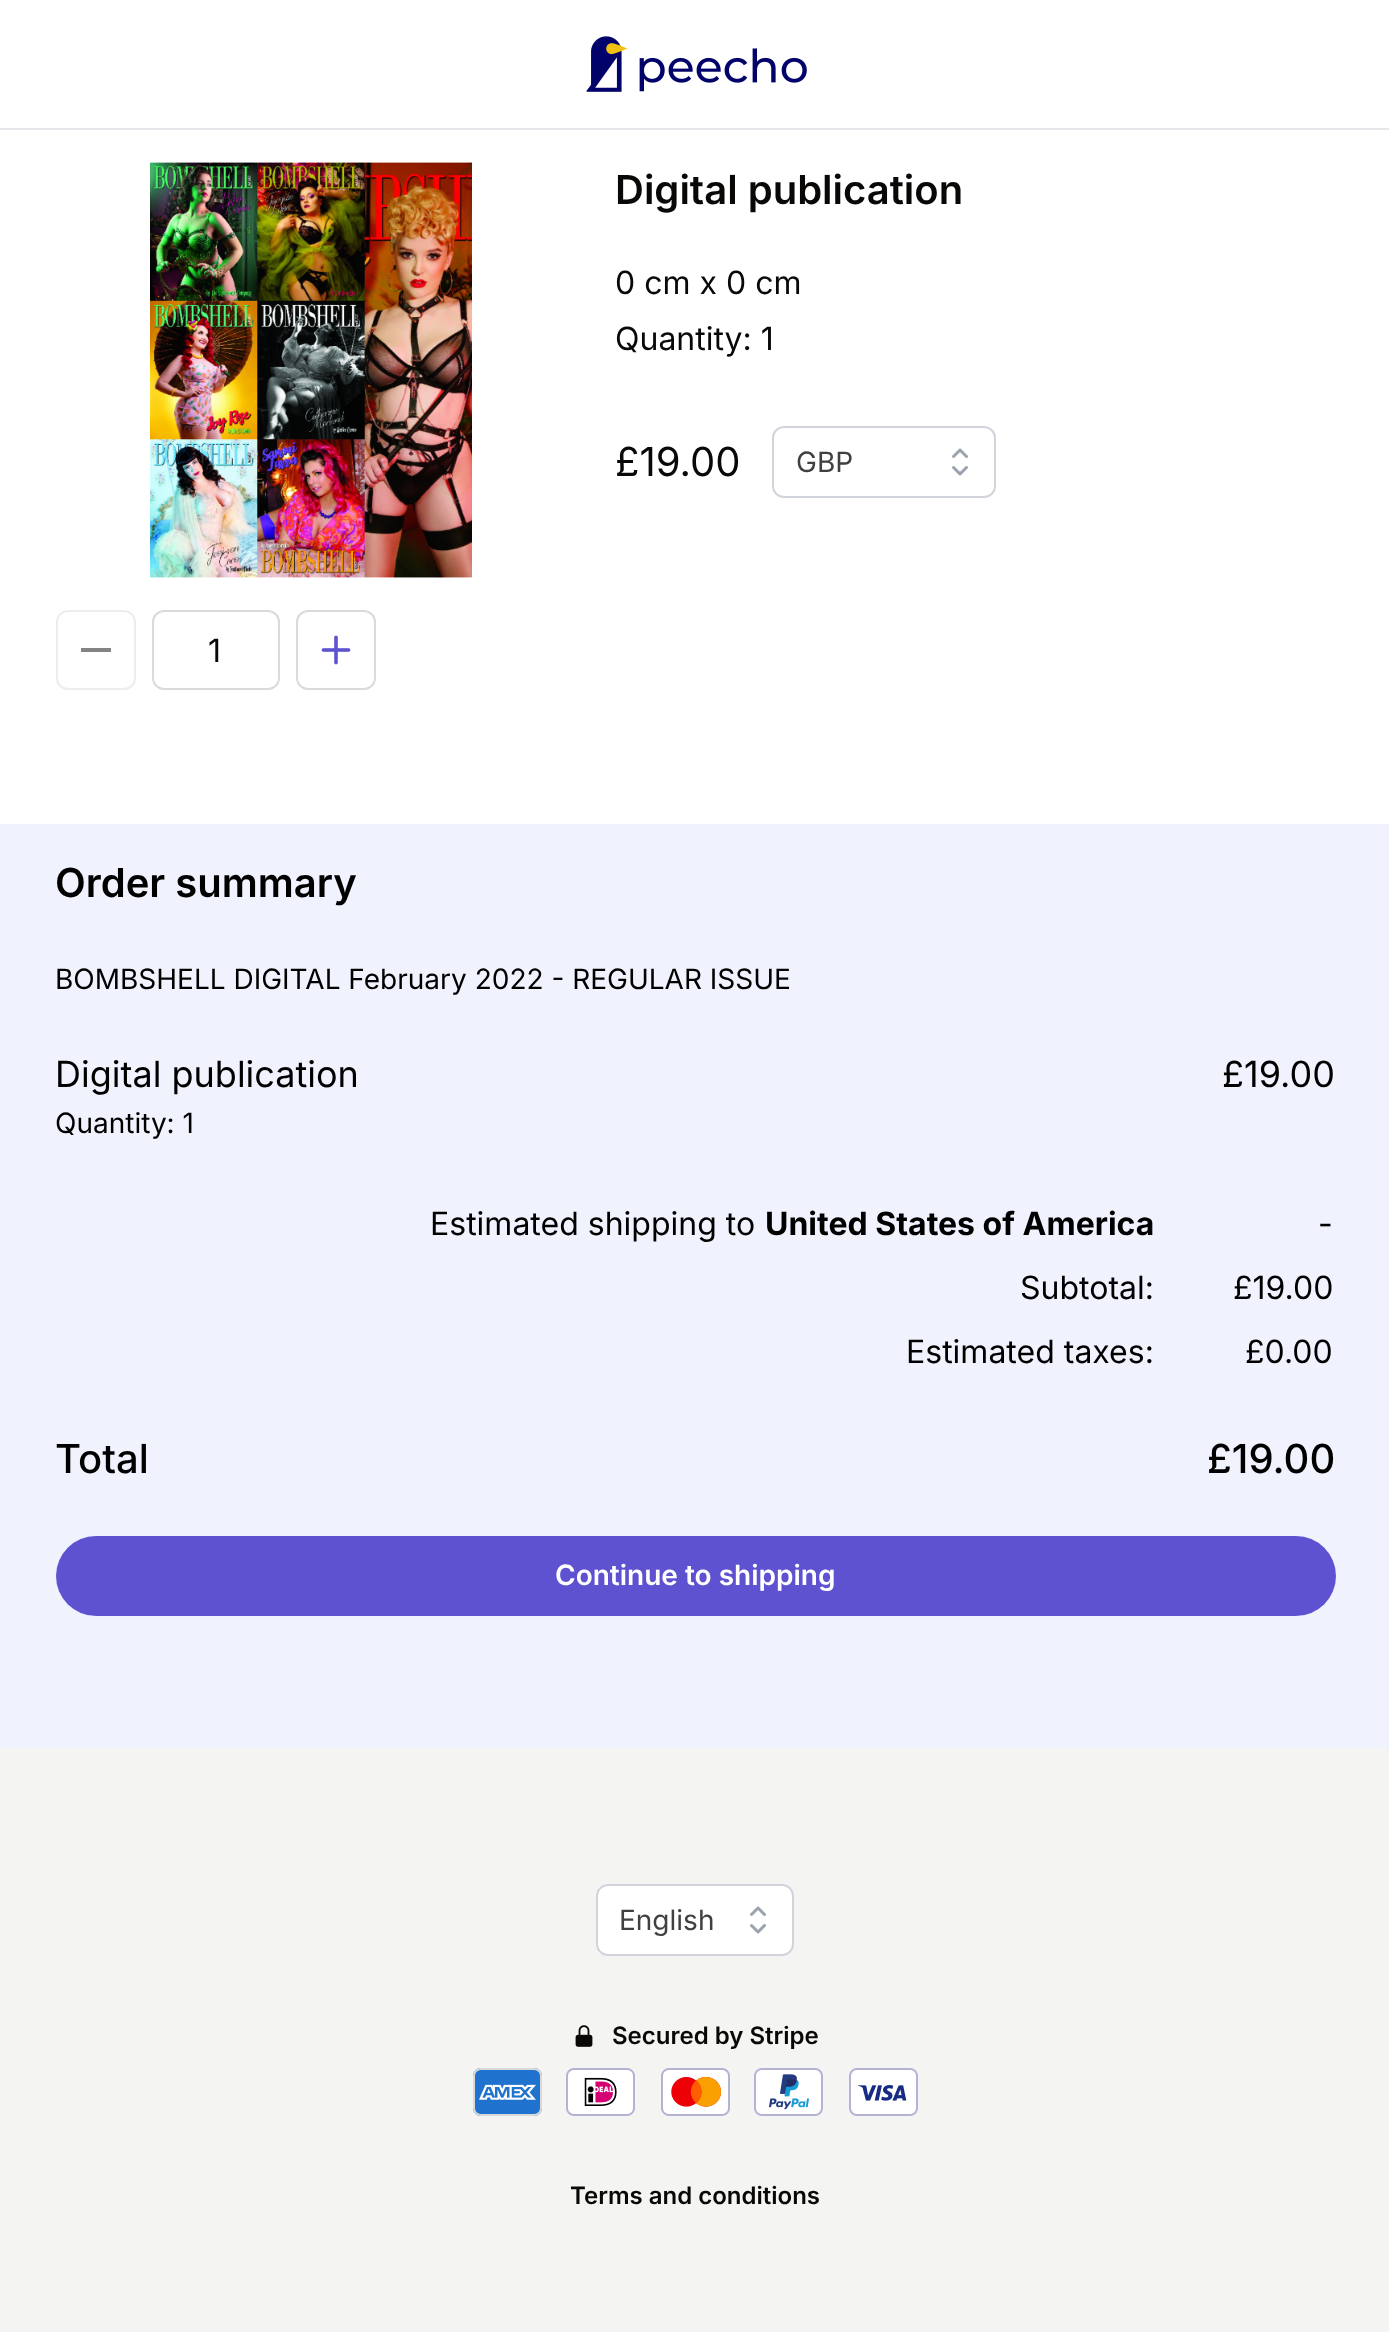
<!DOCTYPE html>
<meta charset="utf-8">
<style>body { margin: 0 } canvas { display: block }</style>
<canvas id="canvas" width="1389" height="2332"></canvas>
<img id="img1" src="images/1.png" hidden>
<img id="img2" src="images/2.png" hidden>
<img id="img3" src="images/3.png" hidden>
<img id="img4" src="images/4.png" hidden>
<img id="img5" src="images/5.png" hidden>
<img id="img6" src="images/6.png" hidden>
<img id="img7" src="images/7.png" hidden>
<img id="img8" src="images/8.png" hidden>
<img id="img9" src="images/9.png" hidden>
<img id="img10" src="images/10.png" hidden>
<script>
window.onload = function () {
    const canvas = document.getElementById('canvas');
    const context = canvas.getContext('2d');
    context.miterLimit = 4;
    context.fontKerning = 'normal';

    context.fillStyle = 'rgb(255, 255, 255)';
    context.fillRect(0, 0, 1389, 2332);
    context.fillStyle = 'rgb(229, 231, 235)';
    context.fillRect(0, 128, 1389, 2);
    context.drawImage(document.getElementById('img1'), 586, 36, 221, 56);
    context.drawImage(document.getElementById('img2'), 150, 162, 322, 416);
    context.beginPath();
    context.roundRect(773, 427, 222, 70, 11);
    context.strokeStyle = 'rgb(209, 213, 219)';
    context.lineWidth = 2;
    context.stroke();
    context.drawImage(document.getElementById('img3'), 952, 448, 16, 28);
    context.beginPath();
    context.roundRect(57, 611, 78, 78, 11);
    context.strokeStyle = 'rgb(237, 237, 236)';
    context.stroke();
    context.fillStyle = 'rgb(132, 132, 131)';
    context.fillRect(81, 648, 30, 4);
    context.beginPath();
    context.roundRect(153, 611, 126, 78, 11);
    context.strokeStyle = 'rgb(218, 218, 218)';
    context.stroke();
    context.beginPath();
    context.roundRect(297, 611, 78, 78, 11);
    context.stroke();
    context.drawImage(document.getElementById('img4'), 321, 635, 30, 30);
    context.fillStyle = 'rgb(240, 243, 253)';
    context.fillRect(0, 824, 1389, 924);
    context.fillStyle = 'rgb(94, 82, 209)';
    context.beginPath();
    context.roundRect(56, 1536, 1280, 80, 40);
    context.fill();
    context.fillStyle = 'rgb(244, 244, 243)';
    context.fillRect(0, 1748, 1389, 584);
    context.fillStyle = 'rgb(255, 255, 255)';
    context.beginPath();
    context.roundRect(597, 1885, 196, 70, 11);
    context.fill();
    context.strokeStyle = 'rgb(209, 213, 219)';
    context.stroke();
    context.drawImage(document.getElementById('img3'), 750, 1906, 16, 28);
    context.drawImage(document.getElementById('img5'), 575, 2025, 18, 22);
    context.drawImage(document.getElementById('img6'), 473, 2068, 69, 48);
    context.drawImage(document.getElementById('img7'), 566, 2068, 69, 48);
    context.drawImage(document.getElementById('img8'), 661, 2068, 69, 48);
    context.drawImage(document.getElementById('img9'), 754, 2068, 69, 48);
    context.drawImage(document.getElementById('img10'), 849, 2068, 69, 48);
    context.font = '600 40px Inter';
    context.fillStyle = 'rgb(9, 8, 6)';
    context.fillText('Digital publication', 615, 204);
    context.font = '32px Inter';
    context.fillText('0 cm x 0 cm', 615, 294);
    context.fillText('Quantity: 1', 615, 350);
    context.font = '40px Inter';
    context.fillText('£19.00', 615, 476);
    context.font = '28px Inter';
    context.fillStyle = 'rgb(64, 64, 64)';
    context.fillText('GBP', 796, 472);
    context.font = '32px Inter';
    context.fillStyle = 'rgb(9, 8, 6)';
    context.fillText('1', 208, 662);
    context.font = '600 40px Inter';
    context.fillStyle = 'rgb(0, 0, 0)';
    context.fillText('Order summary', 55, 897);
    context.font = '28px Inter';
    context.fillText('BOMBSHELL DIGITAL February 2022 - REGULAR ISSUE', 55, 989);
    context.font = '36px Inter';
    context.fillText('Digital publication', 55, 1087);
    context.fillText('£19.00', 1222, 1087);
    context.font = '28px Inter';
    context.fillText('Quantity: 1', 55, 1133);
    context.font = '32px Inter';
    context.fillText('Estimated shipping to', 430, 1235);
    context.font = 'bold 32px Inter';
    context.fillText('United States of America', 765, 1235);
    context.font = '32px Inter';
    context.fillText('-', 1318, 1235);
    context.fillText('Subtotal:', 1020, 1299);
    context.fillText('£19.00', 1233, 1299);
    context.fillText('Estimated taxes:', 906, 1363);
    context.fillText('£0.00', 1245, 1363);
    context.font = '500 40px Inter';
    context.fillText('Total', 55, 1473);
    context.fillText('£19.00', 1207, 1473);
    context.font = '600 28px Inter';
    context.fillStyle = 'rgb(255, 255, 255)';
    context.fillText('Continue to shipping', 555, 1585);
    context.font = '28px Inter';
    context.fillStyle = 'rgb(64, 64, 64)';
    context.fillText('English', 619, 1930);
    context.font = '600 24px Inter';
    context.fillStyle = 'rgb(9, 8, 6)';
    context.fillText('Secured by Stripe', 612, 2044);
    context.fillText('Terms and conditions', 570, 2204);
};
</script>
